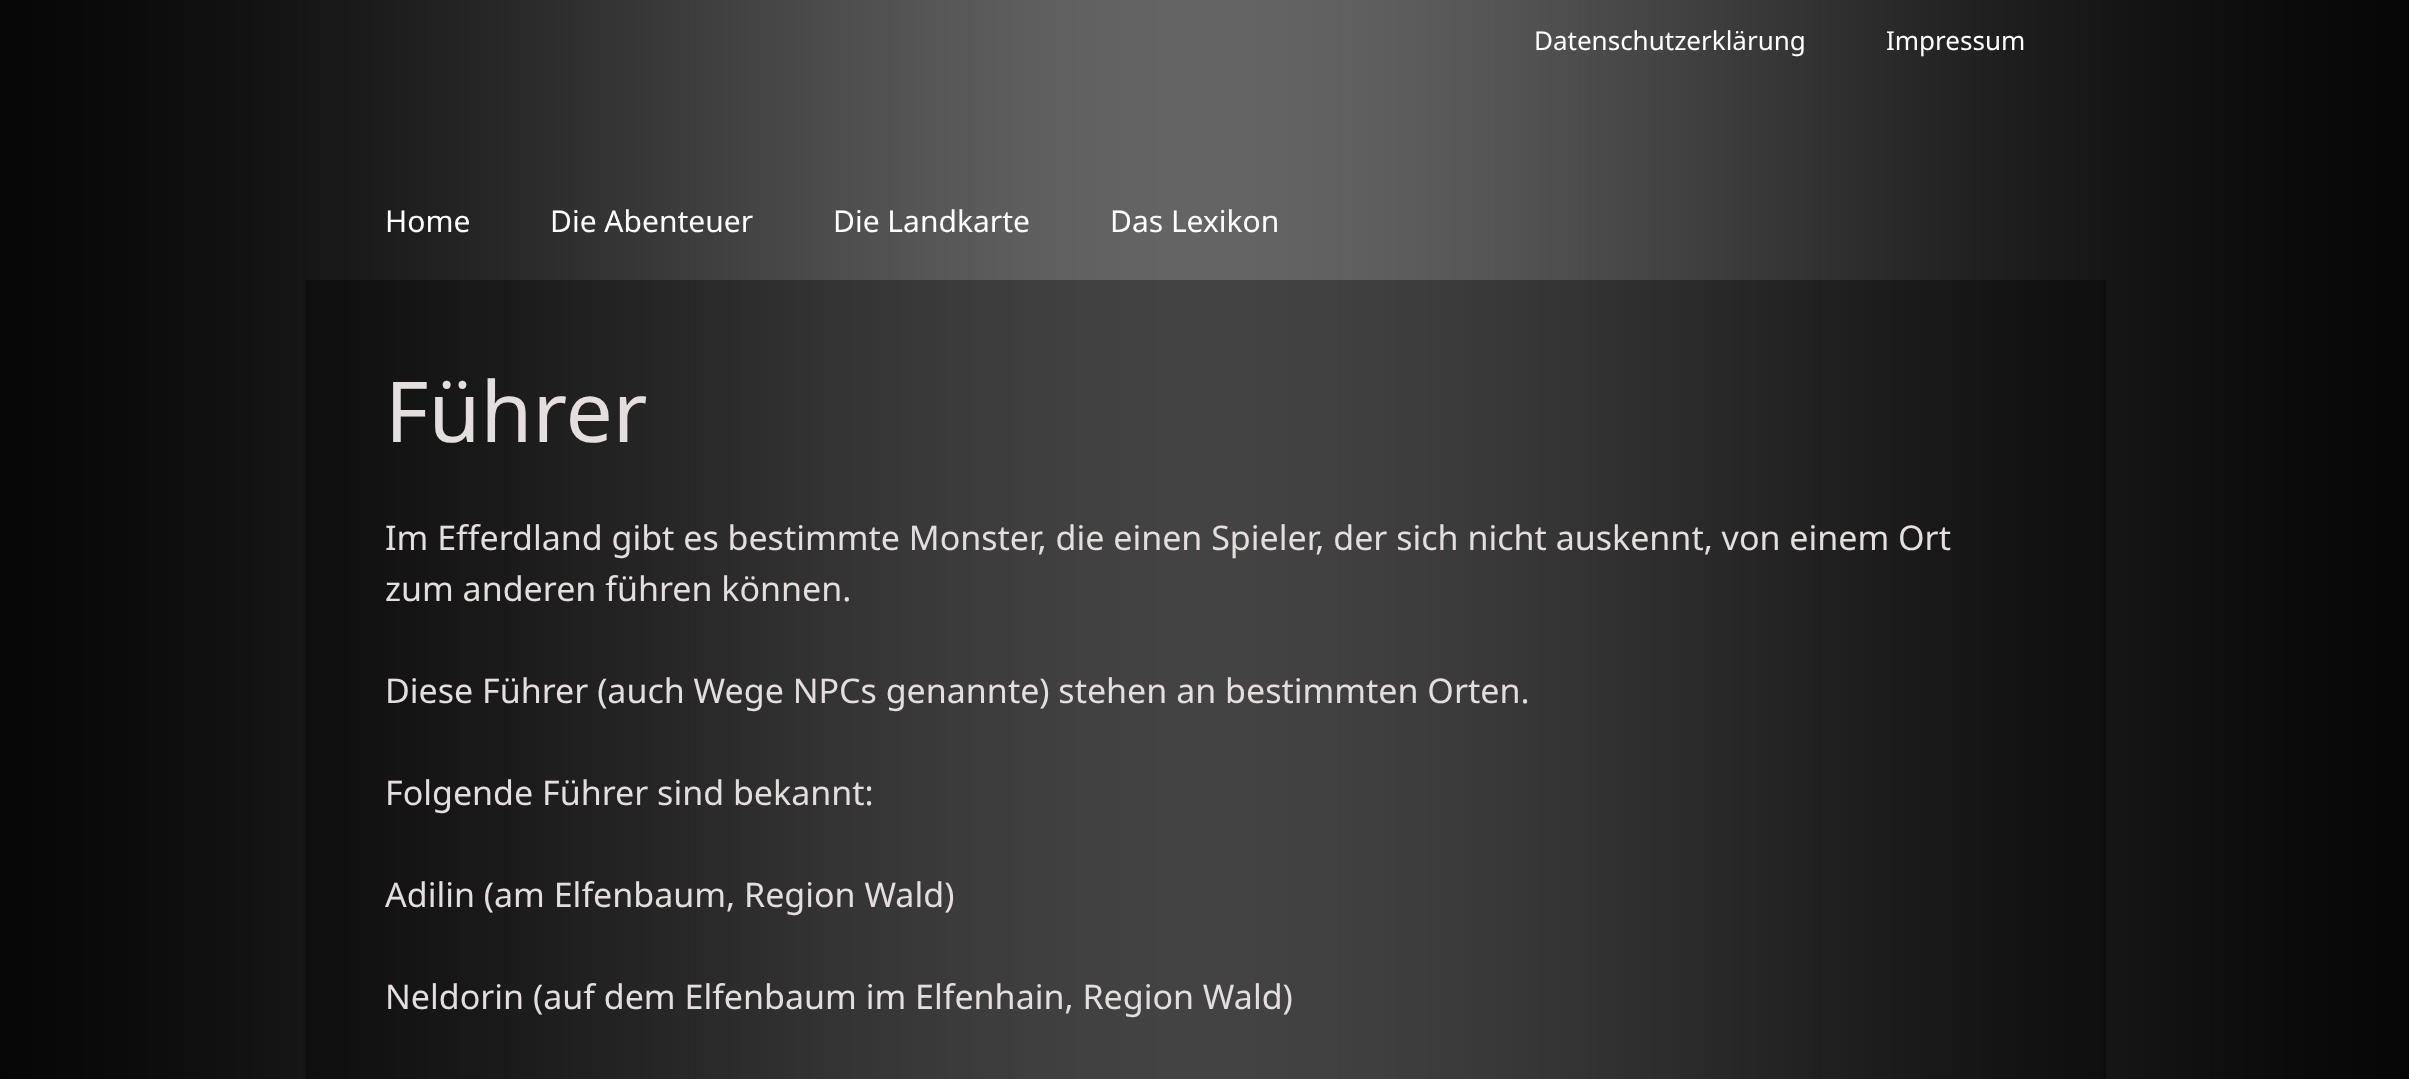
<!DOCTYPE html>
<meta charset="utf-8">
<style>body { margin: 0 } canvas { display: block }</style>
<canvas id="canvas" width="2409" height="1079"></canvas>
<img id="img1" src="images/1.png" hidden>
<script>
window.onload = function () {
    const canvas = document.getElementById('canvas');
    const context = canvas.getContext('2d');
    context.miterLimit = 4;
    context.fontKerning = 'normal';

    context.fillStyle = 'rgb(255, 255, 255)';
    context.fillRect(0, 0, 2409, 1079);
    context.drawImage(document.getElementById('img1'), 0, 0, 2409, 1079);
    context.fillStyle = 'rgba(0, 0, 0, 0.33)';
    context.fillRect(306, 280, 1800, 799);
    context.font = '26px Noto Sans';
    context.fillStyle = 'rgb(255, 255, 255)';
    context.fillText('Datenschutzerklärung', 1534, 50);
    context.fillText('Impressum', 1886, 50);
    context.font = '30px Noto Sans';
    context.fillText('Home', 385, 232);
    context.fillText('Die Abenteuer', 550, 232);
    context.fillText('Die Landkarte', 833, 232);
    context.fillText('Das Lexikon', 1110, 232);
    context.font = '84px Noto Sans';
    context.fillStyle = 'rgb(228, 222, 222)';
    context.fillText('Führer', 385, 442);
    context.font = '34px Noto Sans';
    context.fillText('Im Efferdland gibt es bestimmte Monster, die einen Spieler, der sich nicht auskennt, von einem Ort', 385, 550);
    context.fillText('zum anderen führen können.', 385, 601);
    context.fillText('Diese Führer (auch Wege NPCs genannte) stehen an bestimmten Orten.', 385, 703);
    context.fillText('Folgende Führer sind bekannt:', 385, 805);
    context.fillText('Adilin (am Elfenbaum, Region Wald)', 385, 907);
    context.fillText('Neldorin (auf dem Elfenbaum im Elfenhain, Region Wald)', 385, 1009);
};
</script>
